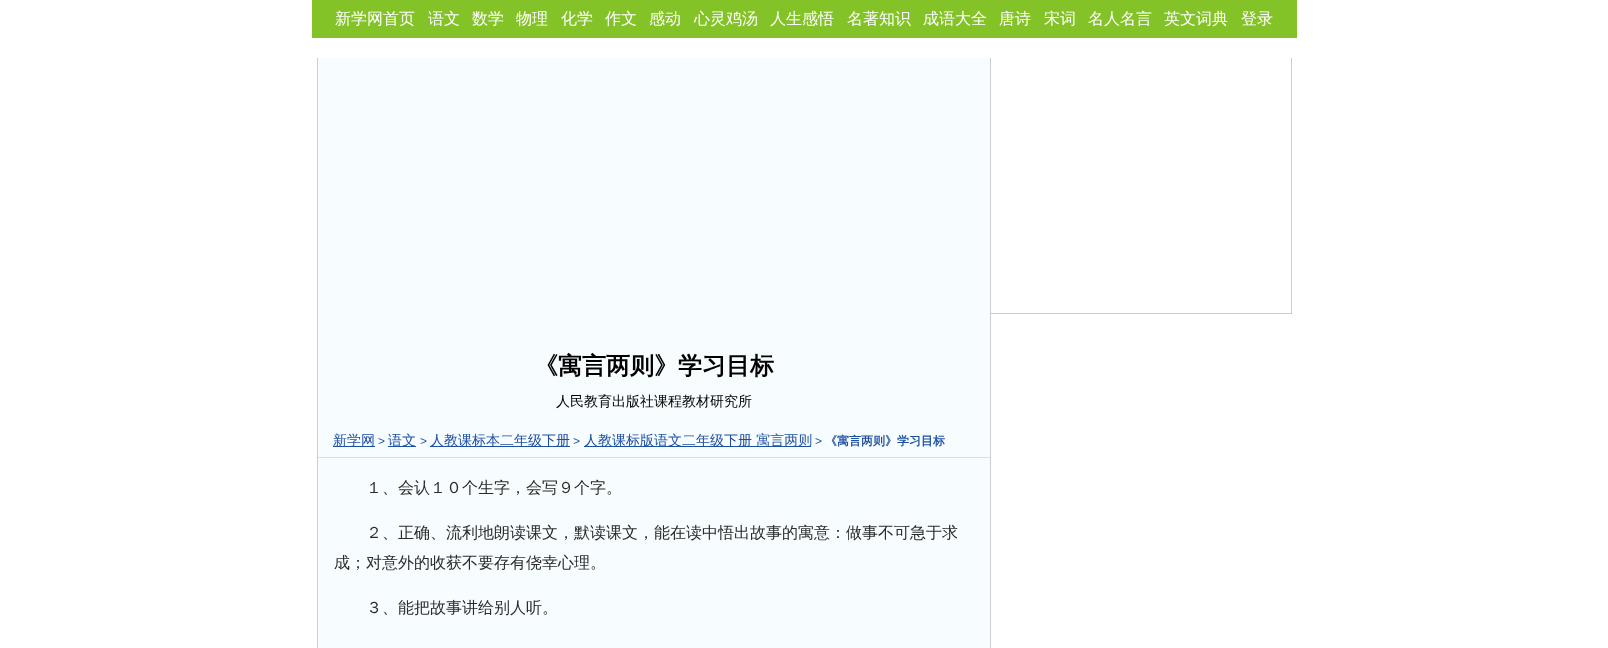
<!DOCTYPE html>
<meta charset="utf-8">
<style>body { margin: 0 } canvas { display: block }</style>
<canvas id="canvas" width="1608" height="648"></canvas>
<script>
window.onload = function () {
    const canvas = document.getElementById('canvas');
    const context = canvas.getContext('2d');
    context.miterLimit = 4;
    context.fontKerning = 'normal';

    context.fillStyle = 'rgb(255, 255, 255)';
    context.fillRect(0, 0, 1608, 648);
    context.fillStyle = 'rgb(131, 195, 39)';
    context.fillRect(312, 0, 985, 38);
    context.fillStyle = 'rgb(204, 204, 204)';
    context.fillRect(1291, 58, 1, 256);
    context.fillRect(991, 313, 301, 1);
    context.fillStyle = 'rgb(247, 252, 255)';
    context.fillRect(318, 58, 672, 590);
    context.fillStyle = 'rgb(204, 204, 204)';
    context.fillRect(990, 58, 1, 590);
    context.fillRect(317, 58, 1, 590);
    context.fillStyle = 'rgb(30, 80, 162)';
    context.fillRect(333, 446, 42, 1);
    context.fillRect(388, 446, 28, 1);
    context.fillRect(430, 446, 140, 1);
    context.fillRect(584, 446, 227, 1);
    context.fillStyle = 'rgb(222, 222, 222)';
    context.fillRect(318, 457, 672, 1);
    context.font = '500 16px WenQuanYi Zen Hei';
    context.fillStyle = 'rgb(255, 255, 255)';
    context.fillText('新学网首页', 335, 24);
    context.fillText('语文', 428, 24);
    context.fillText('数学', 472, 24);
    context.fillText('物理', 516, 24);
    context.fillText('化学', 561, 24);
    context.fillText('作文', 605, 24);
    context.fillText('感动', 649, 24);
    context.fillText('心灵鸡汤', 694, 24);
    context.fillText('人生感悟', 770, 24);
    context.fillText('名著知识', 847, 24);
    context.fillText('成语大全', 923, 24);
    context.fillText('唐诗', 999, 24);
    context.fillText('宋词', 1044, 24);
    context.fillText('名人名言', 1088, 24);
    context.fillText('英文词典', 1164, 24);
    context.fillText('登录', 1241, 24);
    context.font = 'bold 24px WenQuanYi Zen Hei';
    context.fillStyle = 'rgb(0, 0, 0)';
    context.fillText('《寓言两则》学习目标', 534, 374);
    context.font = '500 14px WenQuanYi Zen Hei';
    context.fillText('人民教育出版社课程教材研究所', 556, 406);
    context.fillStyle = 'rgb(30, 80, 162)';
    context.fillText('新学网', 333, 445);
    context.font = '12px Liberation Sans';
    context.fillText('>', 378, 445);
    context.font = '500 14px WenQuanYi Zen Hei';
    context.fillText('语文', 388, 445);
    context.font = '12px Liberation Sans';
    context.fillText('>', 420, 445);
    context.font = '500 14px WenQuanYi Zen Hei';
    context.fillText('人教课标本二年级下册', 430, 445);
    context.font = '12px Liberation Sans';
    context.fillText('>', 573, 445);
    context.font = '500 14px WenQuanYi Zen Hei';
    context.fillText('人教课标版语文二年级下册 寓言两则', 584, 445);
    context.font = '12px Liberation Sans';
    context.fillText('>', 815, 445);
    context.font = 'bold 12px WenQuanYi Zen Hei';
    context.fillText('《寓言两则》学习目标', 825, 445);
    context.font = '500 16px WenQuanYi Zen Hei';
    context.fillStyle = 'rgb(43, 43, 43)';
    context.fillText('１、会认１０个生字，会写９个字。', 366, 493);
    context.fillText('２、正确、流利地朗读课文，默读课文，能在读中悟出故事的寓意：做事不可急于求', 366, 538);
    context.fillText('成；对意外的收获不要存有侥幸心理。', 334, 568);
    context.fillText('３、能把故事讲给别人听。', 366, 613);
};
</script>
